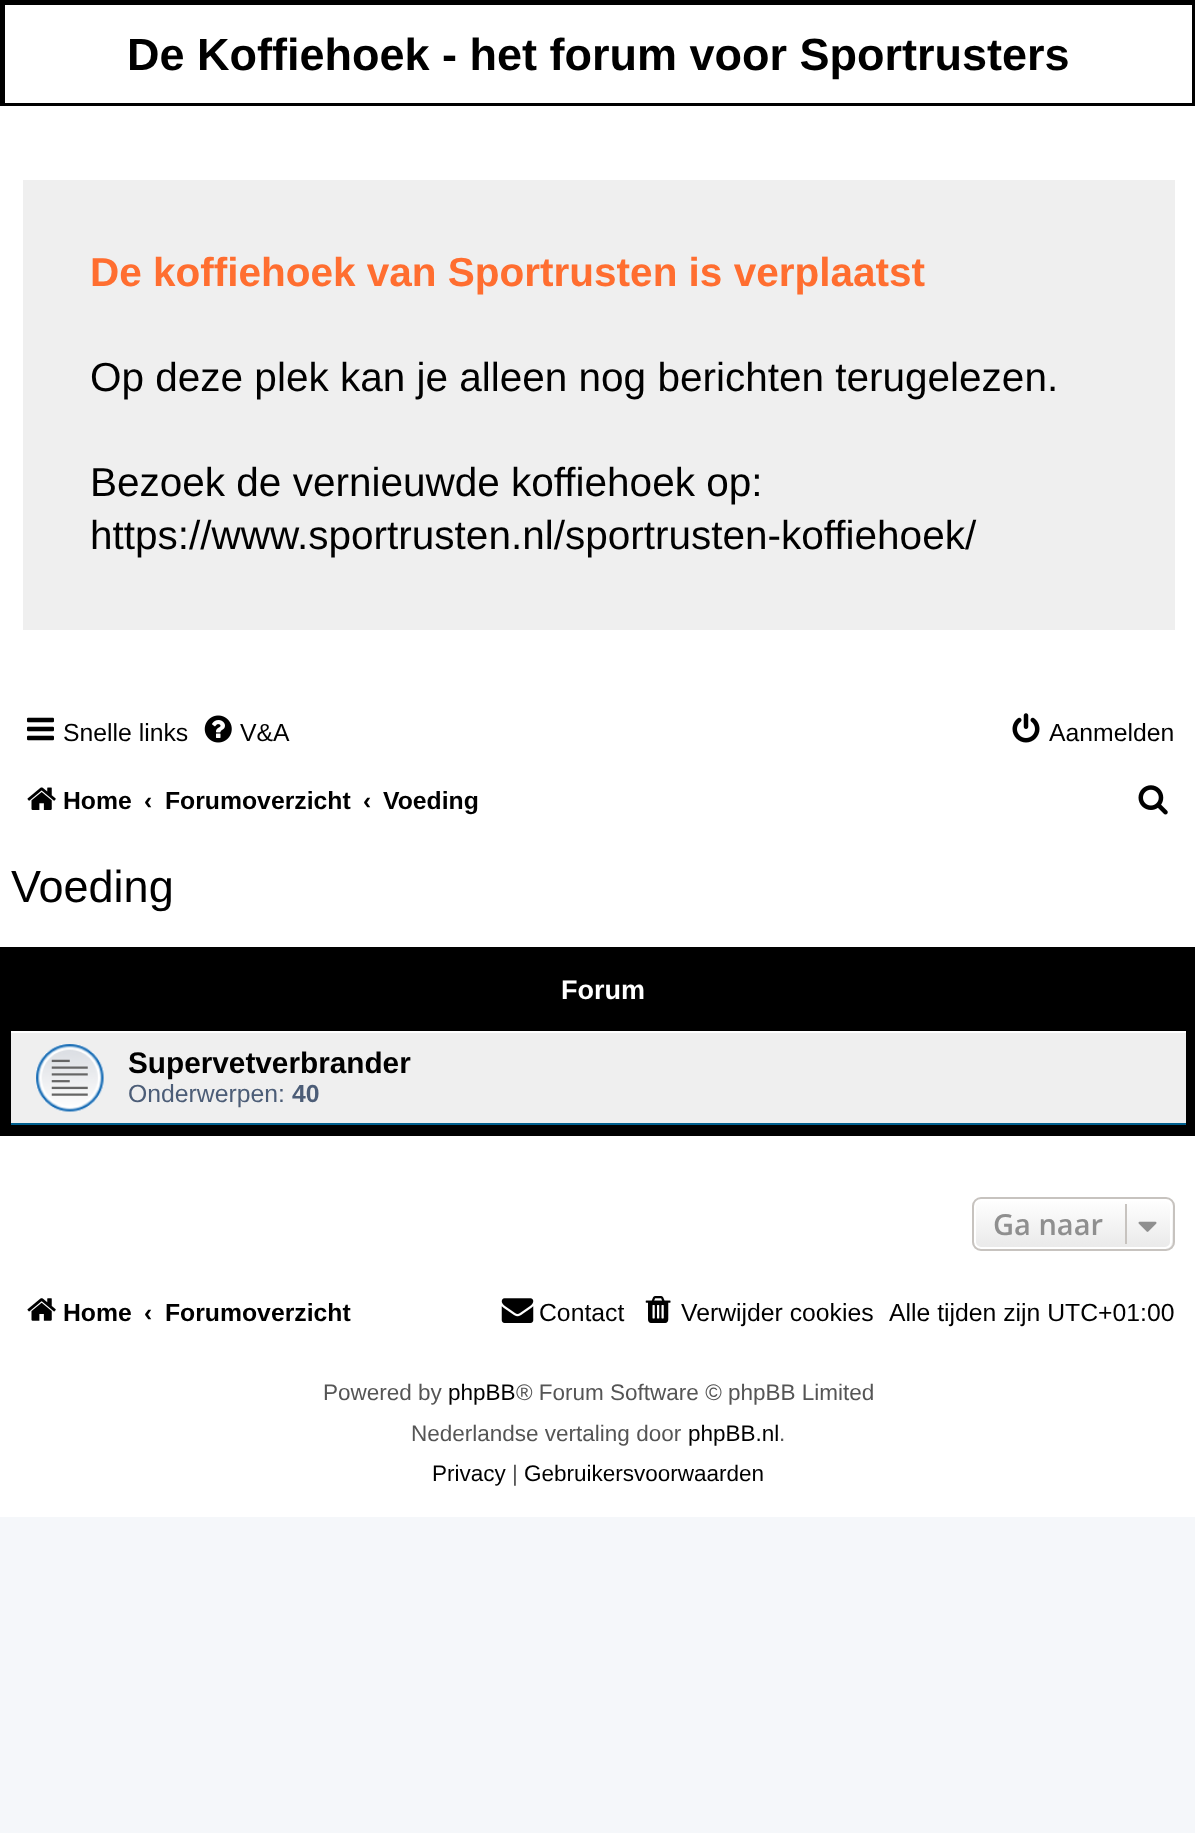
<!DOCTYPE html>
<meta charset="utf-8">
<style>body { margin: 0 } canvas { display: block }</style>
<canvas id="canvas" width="1195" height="1833"></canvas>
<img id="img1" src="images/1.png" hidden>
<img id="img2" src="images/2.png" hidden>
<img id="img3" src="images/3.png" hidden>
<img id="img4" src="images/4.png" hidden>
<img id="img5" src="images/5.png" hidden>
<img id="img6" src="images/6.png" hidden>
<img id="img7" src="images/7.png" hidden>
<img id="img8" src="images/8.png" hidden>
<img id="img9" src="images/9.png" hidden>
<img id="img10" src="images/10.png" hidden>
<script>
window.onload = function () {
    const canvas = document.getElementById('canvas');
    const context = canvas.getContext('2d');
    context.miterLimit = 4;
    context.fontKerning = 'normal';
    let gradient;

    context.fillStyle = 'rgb(245, 247, 250)';
    context.fillRect(0, 0, 1195, 1833);
    context.fillStyle = 'rgb(255, 255, 255)';
    context.fillRect(0, 5, 1195, 1512);
    context.strokeStyle = 'rgb(0, 0, 0)';
    context.lineWidth = 5;
    context.strokeRect(2.5, 2.5, 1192, 103);
    context.fillRect(0, 106, 1195, 2);
    context.fillStyle = 'rgb(239, 239, 239)';
    context.fillRect(23, 180, 1152, 450);
    context.drawImage(document.getElementById('img1'), 27, 717, 27, 24);
    context.drawImage(document.getElementById('img2'), 204, 715, 28, 28);
    context.drawImage(document.getElementById('img3'), 1012, 713, 28, 30);
    context.drawImage(document.getElementById('img4'), 27, 787, 29, 23);
    context.drawImage(document.getElementById('img5'), 1138, 785, 30, 30);
    context.fillStyle = 'rgb(0, 0, 0)';
    context.fillRect(0, 947, 1195, 189);
    context.fillStyle = 'rgb(239, 239, 239)';
    context.fillRect(11, 1033, 1175, 90);
    context.fillStyle = 'rgb(255, 255, 255)';
    context.fillRect(11, 1031, 1175, 2);
    context.fillStyle = 'rgb(0, 96, 143)';
    context.fillRect(11, 1123, 1175, 2);
    context.drawImage(document.getElementById('img6'), 36, 1044, 68, 68);
    context.save();
    context.beginPath();
    context.roundRect(972, 1197, 203, 54, 9);
    context.clip();
    gradient = context.createLinearGradient(1073, 1199, 1073, 1249);
    gradient.addColorStop(0, 'rgb(255, 255, 255)');
    gradient.addColorStop(1, 'rgb(233, 233, 233)');
    context.fillStyle = gradient;
    context.fillRect(972, 1199, 203, 50);
    context.restore();
    context.beginPath();
    context.roundRect(975, 1200, 196, 48, 6);
    context.strokeStyle = 'rgb(255, 255, 255)';
    context.lineWidth = 2;
    context.stroke();
    context.beginPath();
    context.roundRect(973, 1198, 201, 52, 8);
    context.strokeStyle = 'rgb(199, 195, 191)';
    context.stroke();
    context.fillStyle = 'rgb(199, 195, 191)';
    context.fillRect(1125, 1204, 2, 40);
    context.drawImage(document.getElementById('img7'), 1138, 1221, 19, 11);
    context.drawImage(document.getElementById('img8'), 27, 1298, 29, 23);
    context.drawImage(document.getElementById('img9'), 501, 1298, 33, 25);
    context.drawImage(document.getElementById('img10'), 645, 1296, 26, 27);
    context.font = 'bold 45px Liberation Sans';
    context.fillStyle = 'rgb(0, 0, 0)';
    context.fillText('De Koffiehoek - het forum voor Sportrusters', 127, 70);
    context.font = 'bold 40.5px Liberation Sans';
    context.fillStyle = 'rgb(255, 110, 48)';
    context.fillText('De koffiehoek van Sportrusten is verplaatst', 90, 286);
    context.font = '40.5px Liberation Sans';
    context.fillStyle = 'rgb(0, 0, 0)';
    context.fillText('Op deze plek kan je alleen nog berichten terugelezen.', 90, 391);
    context.fillText('Bezoek de vernieuwde koffiehoek op:', 90, 496);
    context.fillText('https://www.sportrusten.nl/sportrusten-koffiehoek/', 90, 549);
    context.font = '24.75px Liberation Sans';
    context.fillText('Snelle links', 63, 741);
    context.fillText('V&A', 240, 741);
    context.fillText('Aanmelden', 1049, 741);
    context.font = 'bold 24.75px Liberation Sans';
    context.fillText('Home', 63, 809);
    context.fillText('‹', 144, 809);
    context.fillText('Forumoverzicht', 165, 809);
    context.fillText('‹', 363, 809);
    context.fillText('Voeding', 383, 809);
    context.font = '45px Liberation Sans';
    context.fillText('Voeding', 11, 902);
    context.font = 'bold 27px Liberation Sans';
    context.fillStyle = 'rgb(255, 255, 255)';
    context.fillText('Forum', 561, 999);
    context.font = 'bold 29.75px Liberation Sans';
    context.fillStyle = 'rgb(0, 0, 0)';
    context.fillText('Supervetverbrander', 128, 1073);
    context.font = '24.75px Liberation Sans';
    context.fillStyle = 'rgb(76, 93, 119)';
    context.fillText('Onderwerpen:', 128, 1102);
    context.font = 'bold 24.75px Liberation Sans';
    context.fillText('40', 292, 1102);
    context.font = '600 29px Open Sans';
    context.fillStyle = 'rgb(143, 143, 143)';
    context.fillText('Ga naar', 993, 1235);
    context.font = 'bold 24.75px Liberation Sans';
    context.fillStyle = 'rgb(0, 0, 0)';
    context.fillText('Home', 63, 1321);
    context.fillText('‹', 144, 1321);
    context.fillText('Forumoverzicht', 165, 1321);
    context.font = '24.75px Liberation Sans';
    context.fillText('Contact', 539, 1321);
    context.fillText('Verwijder cookies', 681, 1321);
    context.fillText('Alle tijden zijn UTC+01:00', 889, 1321);
    context.font = '22.5px Liberation Sans';
    context.fillStyle = 'rgb(85, 85, 85)';
    context.fillText('Powered by', 323, 1400);
    context.fillStyle = 'rgb(0, 0, 0)';
    context.fillText('phpBB', 448, 1400);
    context.fillStyle = 'rgb(85, 85, 85)';
    context.fillText('® Forum Software © phpBB Limited', 516, 1400);
    context.fillText('Nederlandse vertaling door', 411, 1441);
    context.fillStyle = 'rgb(0, 0, 0)';
    context.fillText('phpBB.nl', 688, 1441);
    context.fillStyle = 'rgb(85, 85, 85)';
    context.fillText('.', 779, 1441);
    context.fillStyle = 'rgb(0, 0, 0)';
    context.fillText('Privacy', 432, 1481);
    context.fillStyle = 'rgb(85, 85, 85)';
    context.fillText('|', 512, 1481);
    context.fillStyle = 'rgb(0, 0, 0)';
    context.fillText('Gebruikersvoorwaarden', 524, 1481);
};
</script>
